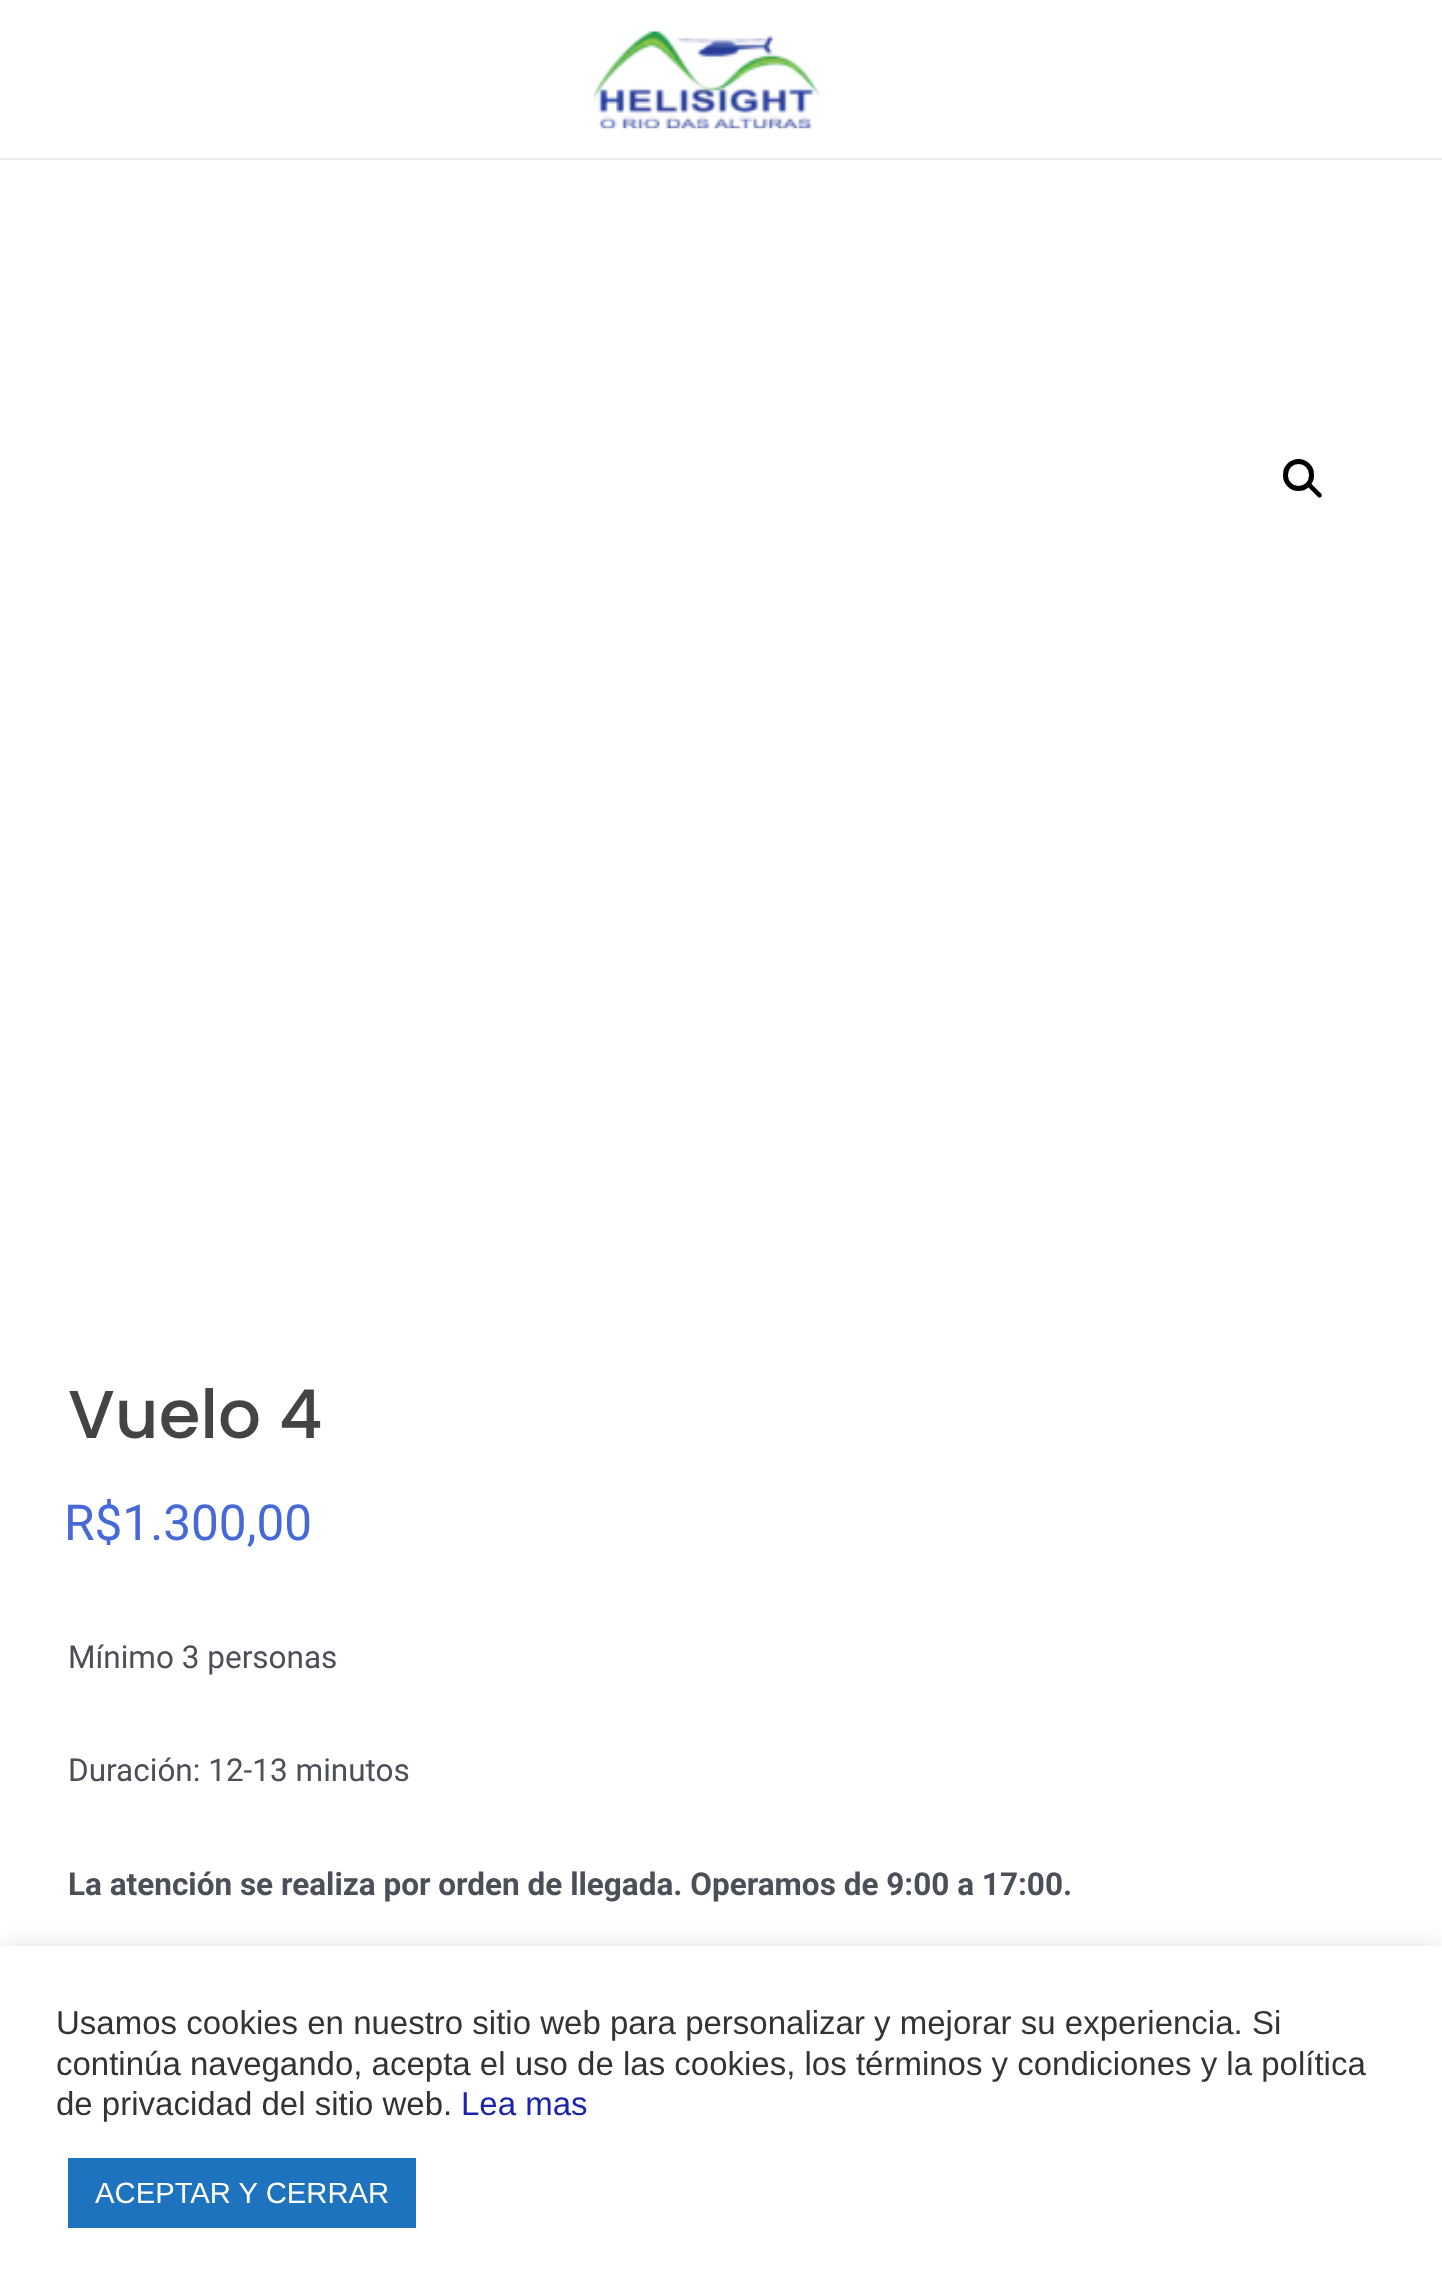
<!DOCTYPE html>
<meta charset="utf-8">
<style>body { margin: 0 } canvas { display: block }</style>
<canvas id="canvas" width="1442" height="2293"></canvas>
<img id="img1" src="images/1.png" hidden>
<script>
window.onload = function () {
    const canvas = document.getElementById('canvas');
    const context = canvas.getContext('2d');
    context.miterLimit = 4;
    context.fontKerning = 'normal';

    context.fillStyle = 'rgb(255, 255, 255)';
    context.fillRect(0, 0, 1442, 2293);
    context.fillStyle = 'rgb(234, 234, 234)';
    context.fillRect(0, 158, 1442, 2);
    context.drawImage(document.getElementById('img1'), 594, 31, 225, 98);
    context.beginPath();
    context.roundRect(1285.5, 461.5, 26, 27, 13);
    context.strokeStyle = 'rgb(0, 0, 0)';
    context.lineWidth = 5;
    context.stroke();
    context.fillStyle = 'rgb(0, 0, 0)';
    context.beginPath();
    context.moveTo(1308.5, 484);
    context.bezierCurveTo(1309.5, 483.5, 1310.5, 483.5, 1311.5, 484);
    context.lineTo(1321, 493.5);
    context.bezierCurveTo(1322, 494.5, 1322, 496, 1321, 497);
    context.bezierCurveTo(1320, 498, 1319, 498, 1318, 497);
    context.lineTo(1308.5, 487.5);
    context.bezierCurveTo(1307.5, 486.5, 1307.5, 485, 1308.5, 484);
    context.closePath();
    context.fill();
    context.fillStyle = 'rgba(172, 171, 171, 0.3)';
    context.filter = 'blur(11px)';
    context.beginPath();
    context.rect(0, 1944, 1442, 349);
    context.fill();
    context.filter = 'none';
    context.fillStyle = 'rgb(255, 255, 255)';
    context.fillRect(0, 1946, 1442, 347);
    context.fillStyle = 'rgb(30, 115, 190)';
    context.fillRect(68, 2158, 348, 70);
    context.font = '500 67.5px Poppins';
    context.fillStyle = 'rgb(68, 68, 68)';
    context.fillText('Vuelo 4', 68, 1438);
    context.font = '49.5px Roboto';
    context.fillStyle = 'rgb(70, 104, 217)';
    context.fillText('R$1.300,00', 64, 1540);
    context.font = '31.5px Roboto';
    context.fillStyle = 'rgb(75, 79, 88)';
    context.fillText('Mínimo 3 personas', 68, 1668);
    context.fillText('Duración: 12-13 minutos', 68, 1781);
    context.font = 'bold 31.5px Roboto';
    context.fillText('La atención se realiza por orden de llegada. Operamos de 9:00 a 17:00.', 68, 1895);
    context.font = '33px Liberation Sans';
    context.fillStyle = 'rgb(51, 51, 51)';
    context.fillText('Usamos cookies en nuestro sitio web para personalizar y mejorar su experiencia. Si', 56, 2034);
    context.fillText('continúa navegando, acepta el uso de las cookies, los términos y condiciones y la política', 56, 2075);
    context.fillText('de privacidad del sitio web.', 56, 2115);
    context.fillStyle = 'rgb(26, 36, 175)';
    context.fillText('Lea mas', 461, 2115);
    context.font = '29.25px Liberation Sans';
    context.fillStyle = 'rgb(255, 255, 255)';
    context.fillText('ACEPTAR Y CERRAR', 95, 2203);
};
</script>
